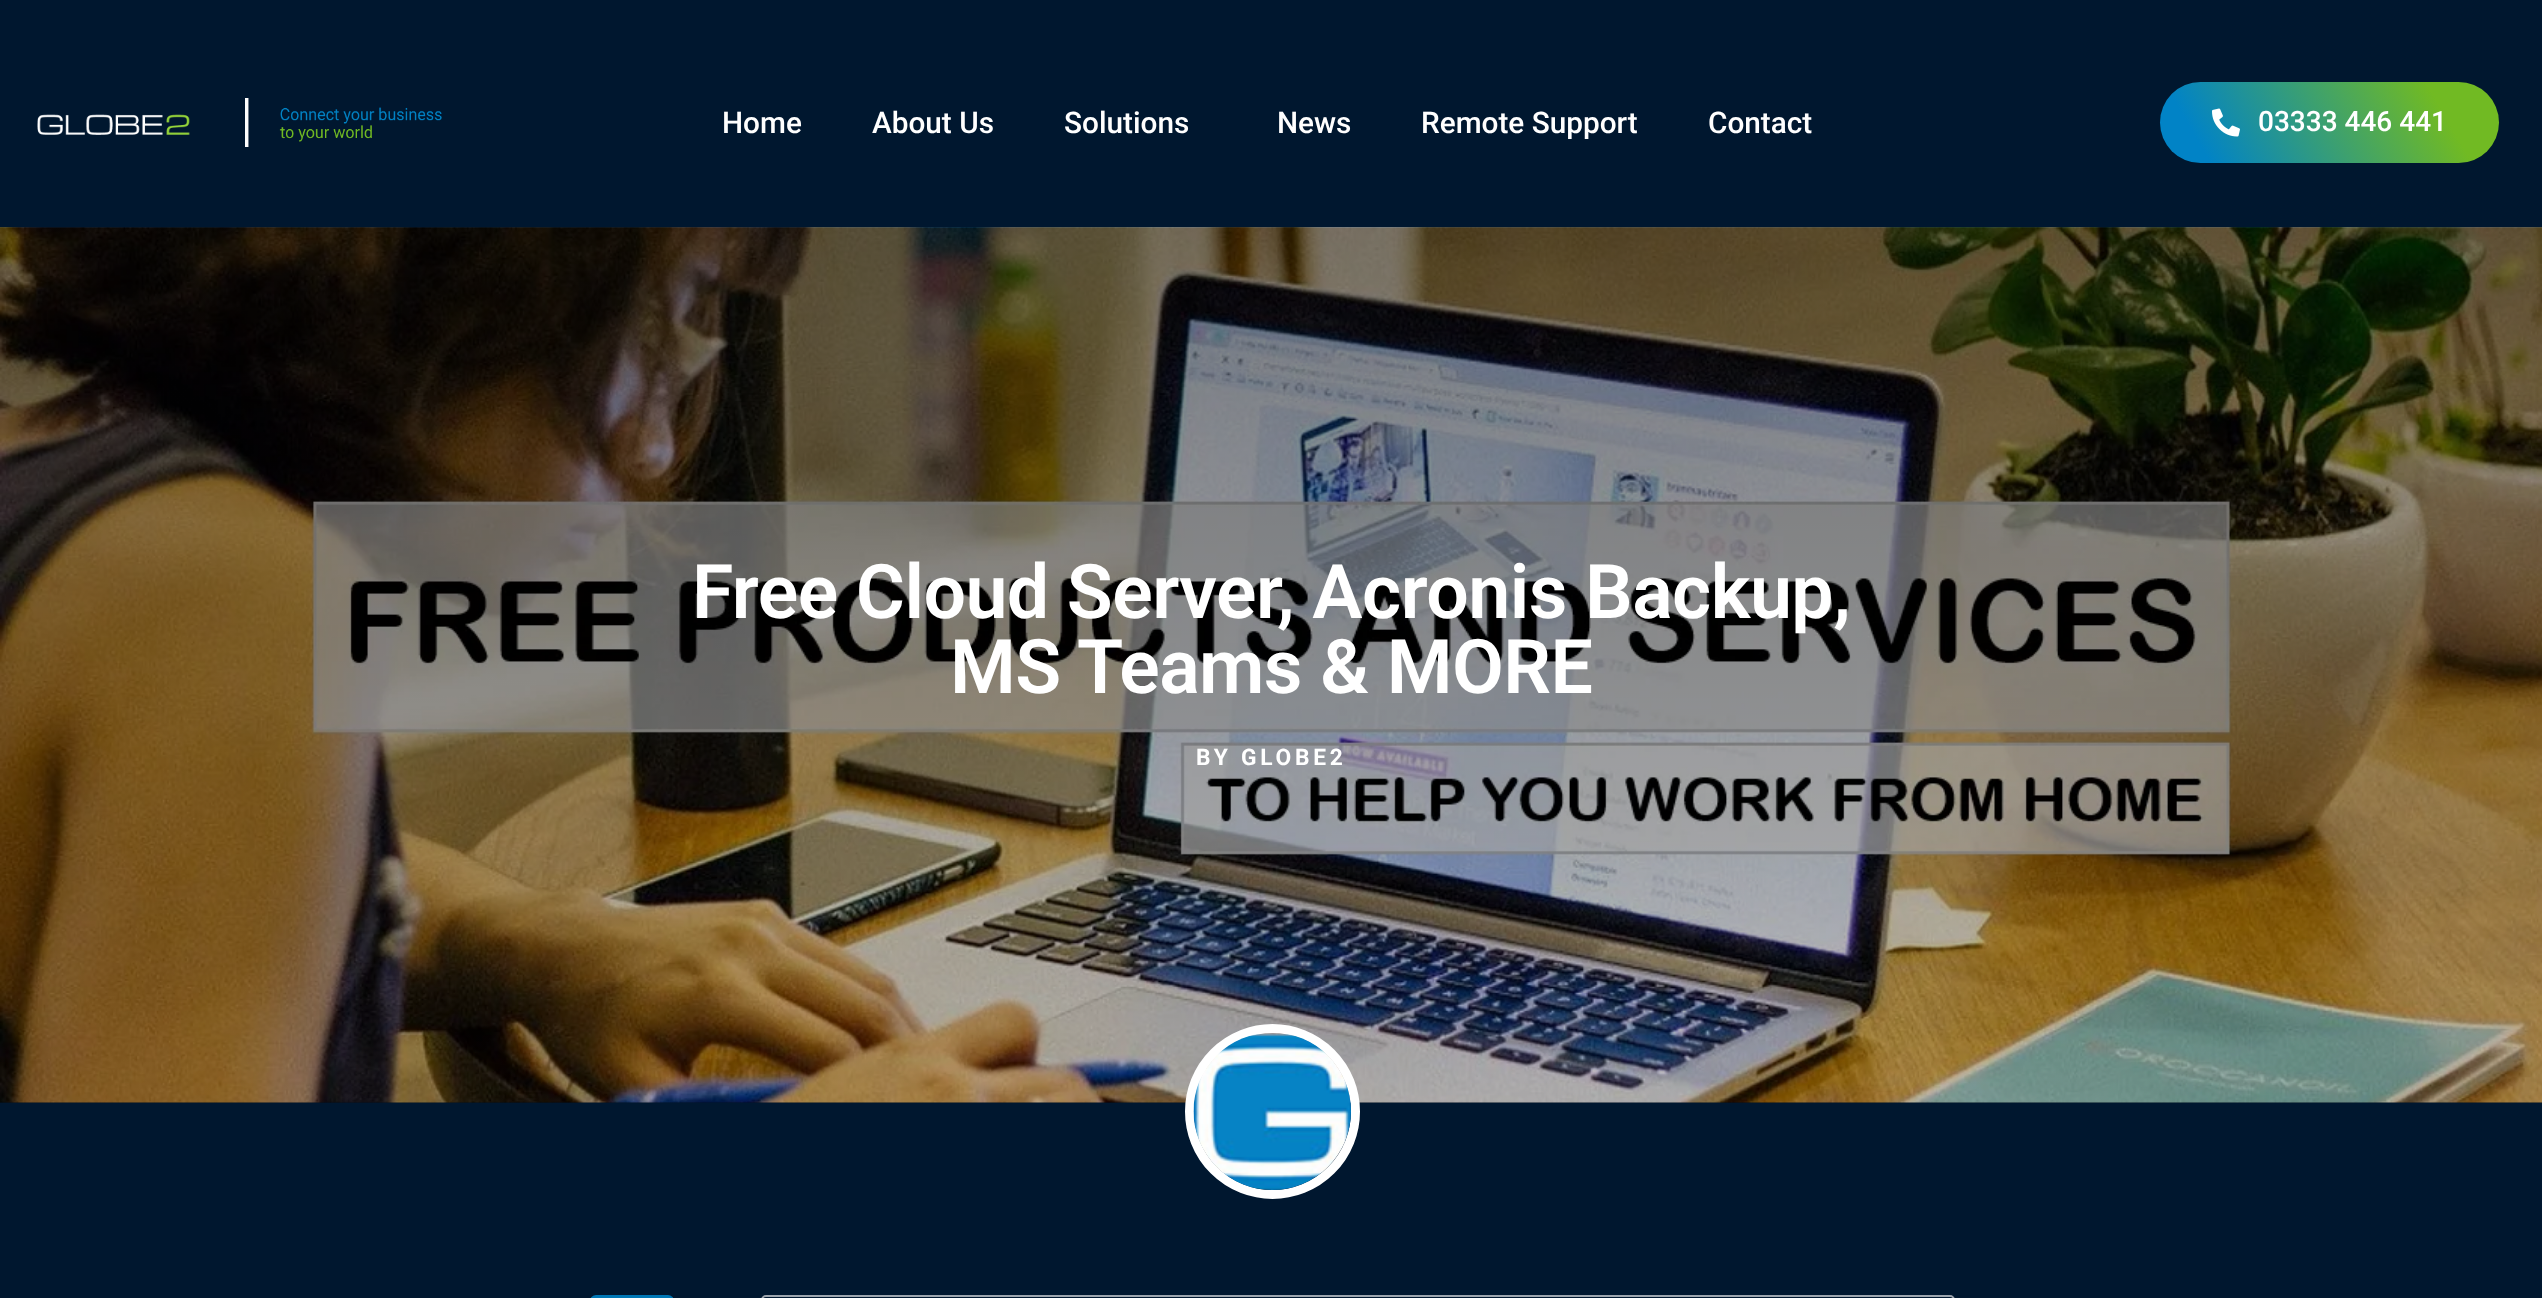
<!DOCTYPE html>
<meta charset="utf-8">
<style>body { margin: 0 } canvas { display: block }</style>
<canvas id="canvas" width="2542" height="1298"></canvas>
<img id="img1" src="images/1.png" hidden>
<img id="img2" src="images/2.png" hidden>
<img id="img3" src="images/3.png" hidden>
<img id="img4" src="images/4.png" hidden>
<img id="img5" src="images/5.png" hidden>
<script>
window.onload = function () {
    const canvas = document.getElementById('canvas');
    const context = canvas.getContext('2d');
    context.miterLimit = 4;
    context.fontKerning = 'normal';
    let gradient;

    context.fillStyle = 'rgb(0, 23, 47)';
    context.fillRect(0, 0, 2542, 1298);
    context.drawImage(document.getElementById('img1'), 37, 114, 153, 21);
    context.drawImage(document.getElementById('img2'), 245, 98, 197, 49);
    gradient = context.createLinearGradient(2185, 206, 2474, 39);
    gradient.addColorStop(0.13, 'rgb(1, 131, 198)');
    gradient.addColorStop(0.81, 'rgb(113, 186, 35)');
    context.fillStyle = gradient;
    context.beginPath();
    context.roundRect(2160, 82, 339, 81, 40.5);
    context.fill();
    context.drawImage(document.getElementById('img3'), 2212, 108, 28, 29);
    context.drawImage(document.getElementById('img4'), 0, 227, 2542, 876);
    gradient = context.createLinearGradient(1271, 227, 1271, 1103);
    gradient.addColorStop(0, 'rgba(0, 0, 0, 0.5)');
    gradient.addColorStop(1, 'rgba(0, 0, 0, 0.25)');
    context.fillStyle = gradient;
    context.fillRect(0, 228, 2542, 875);
    context.beginPath();
    context.arc(1272.5, 1111.5, 83, 0, 2 * Math.PI);
    context.strokeStyle = 'rgb(255, 255, 255)';
    context.lineWidth = 9;
    context.stroke();
    context.drawImage(document.getElementById('img5'), 1193, 1034, 158, 156);
    context.fillStyle = 'rgb(0, 119, 181)';
    context.beginPath();
    context.roundRect(590, 1295, 84, 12, 9);
    context.fill();
    context.beginPath();
    context.roundRect(762, 1296, 1192, 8, 4);
    context.strokeStyle = 'rgb(157, 165, 174)';
    context.lineWidth = 2;
    context.stroke();
    context.font = '500 29.75px Roboto';
    context.fillStyle = 'rgb(255, 255, 255)';
    context.fillText('Home', 722, 133);
    context.fillText('About Us', 872, 133);
    context.fillText('Solutions', 1064, 133);
    context.fillText('News', 1277, 133);
    context.fillText('Remote Support', 1421, 133);
    context.fillText('Contact', 1708, 133);
    context.font = '500 28px Roboto';
    context.fillText('03333 446 441', 2258, 131);
    context.letterSpacing = '-0.55px';
    context.font = '600 75.25px Roboto';
    context.fillText('Free Cloud Server, Acronis Backup,', 692, 618);
    context.fillText('MS Teams & MORE', 950, 693);
    context.letterSpacing = '3.75px';
    context.font = 'bold 22.75px Roboto';
    context.fillText('BY GLOBE2', 1196, 765);
};
</script>
